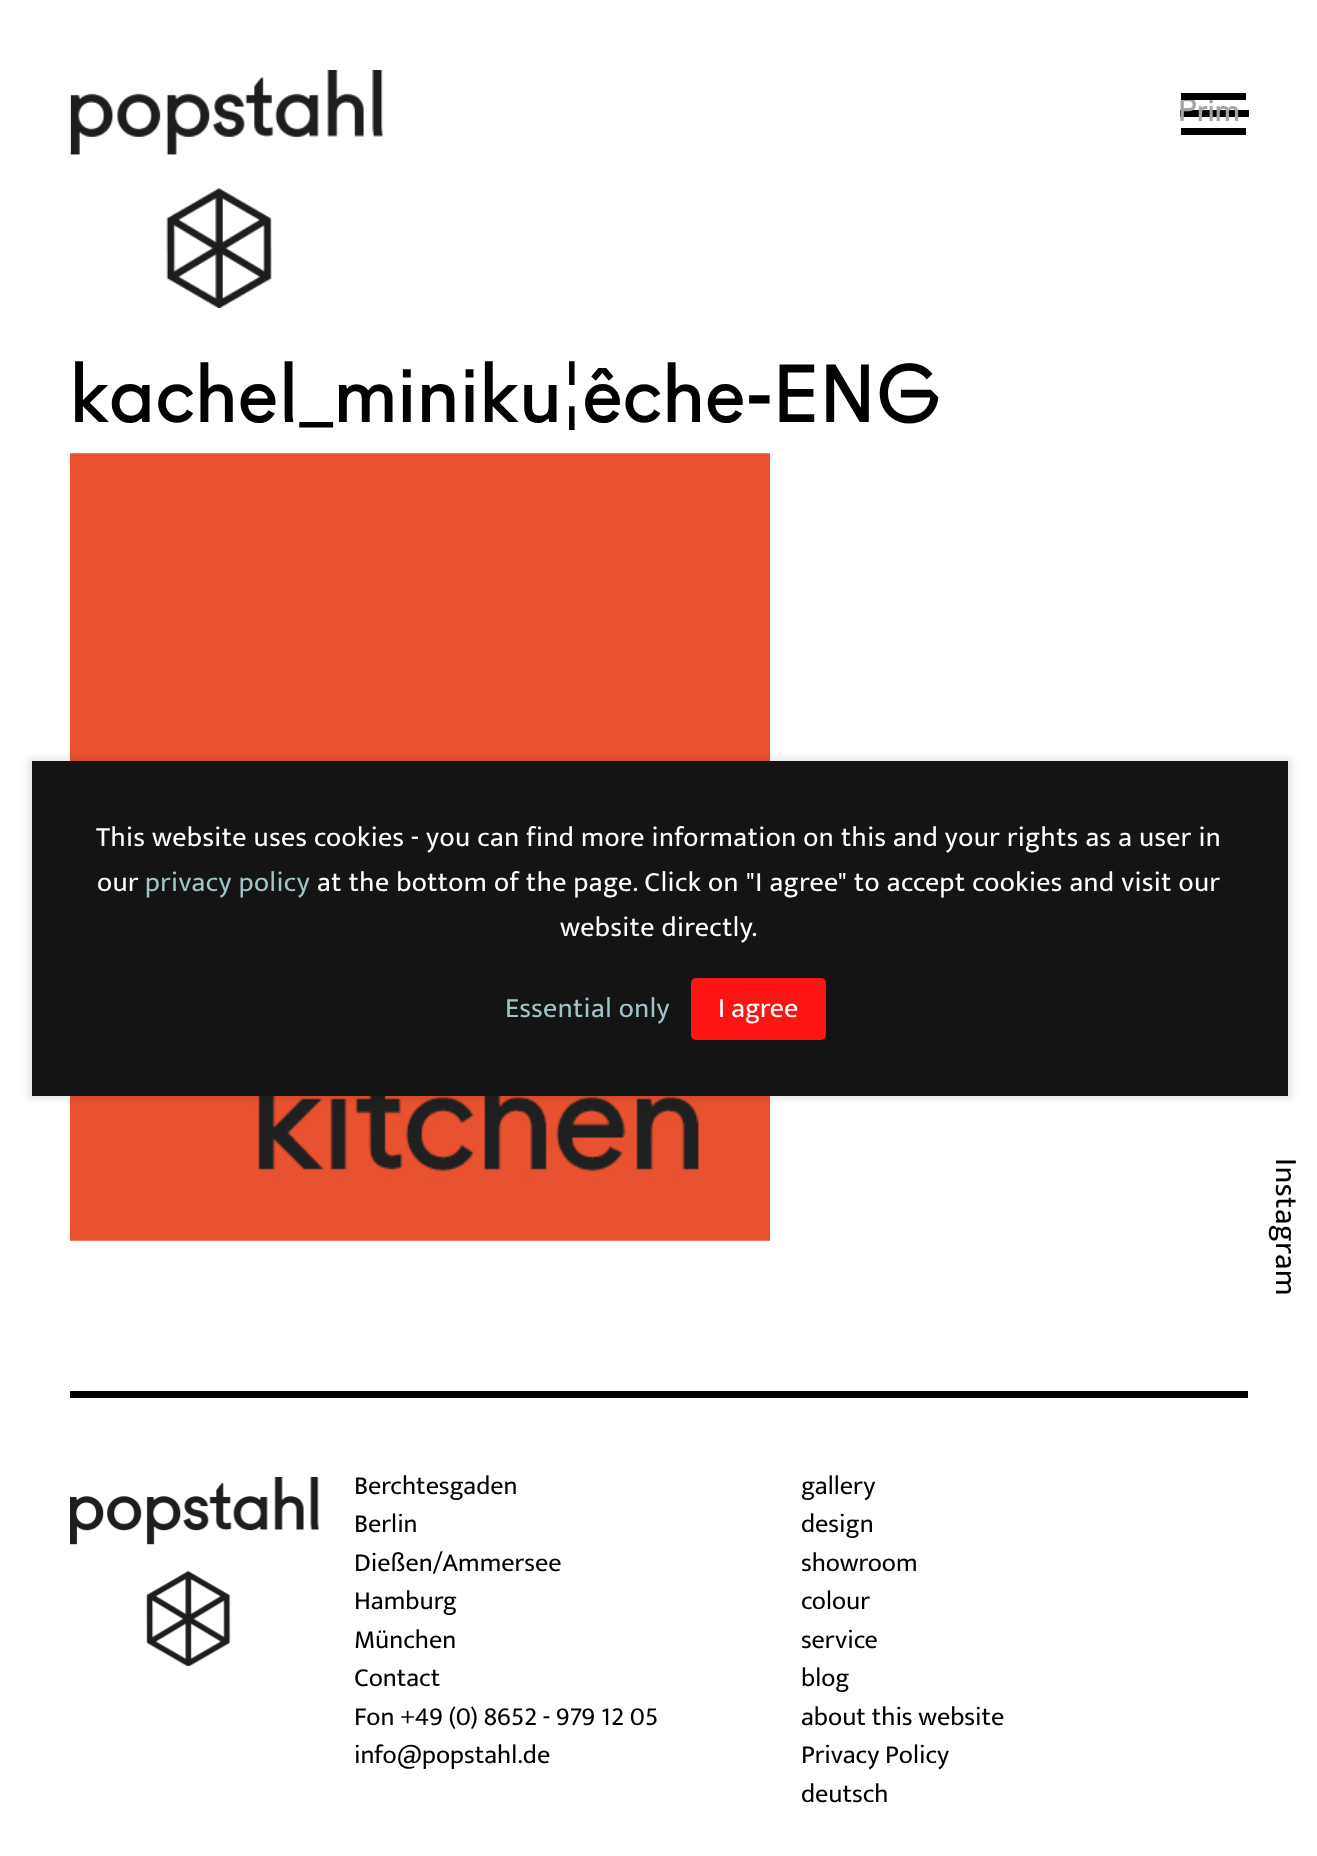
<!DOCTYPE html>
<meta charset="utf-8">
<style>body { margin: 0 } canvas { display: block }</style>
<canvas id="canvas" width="1317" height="1856"></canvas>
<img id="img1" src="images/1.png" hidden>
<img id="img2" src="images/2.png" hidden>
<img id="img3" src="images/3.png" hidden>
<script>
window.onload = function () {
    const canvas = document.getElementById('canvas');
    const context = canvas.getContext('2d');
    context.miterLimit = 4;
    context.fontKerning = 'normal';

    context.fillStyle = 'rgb(255, 255, 255)';
    context.fillRect(0, 0, 1317, 1856);
    context.drawImage(document.getElementById('img1'), 70, 70, 313, 238);
    context.fillStyle = 'rgb(0, 0, 0)';
    context.fillRect(1181, 93, 65, 7);
    context.fillRect(1181, 128, 65, 7);
    context.fillRect(1180, 110, 69, 7);
    context.drawImage(document.getElementById('img2'), 70, 453, 700, 788);
    context.fillRect(70, 1391, 1178, 7);
    context.drawImage(document.getElementById('img3'), 70, 1477, 249, 189);
    context.fillStyle = 'rgba(0, 0, 0, 0.1)';
    context.filter = 'blur(3.5px)';
    context.beginPath();
    context.rect(28, 758, 1264, 341);
    context.fill();
    context.filter = 'none';
    context.fillStyle = 'rgb(20, 20, 20)';
    context.fillRect(32, 761, 1256, 335);
    context.fillStyle = 'rgb(255, 20, 20)';
    context.beginPath();
    context.roundRect(691, 978, 135, 62, 5);
    context.fill();
    context.save();
    context.beginPath();
    context.moveTo(1184, 100);
    context.lineTo(1248.5, 100);
    context.lineTo(1248.5, 128);
    context.lineTo(1178.5, 128);
    context.lineTo(1178.5, 100);
    context.closePath();
    context.clip();
    context.font = '31.5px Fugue';
    context.fillStyle = 'rgb(164, 164, 164)';
    context.fillText('Prim', 1178, 121);
    context.restore();
    context.letterSpacing = '1.2px';
    context.font = '78.75px Fugue';
    context.fillStyle = 'rgb(0, 0, 0)';
    context.fillText('kachel_miniku¦êche-ENG', 70, 422);
    context.letterSpacing = '0.47px';
    context.font = '31.5px Ek Mukta';
    context.save();
    context.translate(1276, 1158);
    context.rotate(90 * Math.PI / 180);
    context.fillText('Instagram', 0, 0);
    context.restore();
    context.letterSpacing = '0px';
    context.font = '26.25px Mukta';
    context.fillText('Berchtesgaden', 354, 1494);
    context.fillText('Berlin', 354, 1532);
    context.fillText('Dießen/Ammersee', 354, 1571);
    context.fillText('Hamburg', 354, 1609);
    context.fillText('München', 354, 1648);
    context.fillText('Contact', 354, 1686);
    context.fillText('Fon +49 (0) 8652 - 979 12 05', 354, 1725);
    context.fillText('info@popstahl.de', 354, 1763);
    context.fillText('gallery', 801, 1494);
    context.fillText('design', 801, 1532);
    context.fillText('showroom', 801, 1571);
    context.fillText('colour', 801, 1609);
    context.fillText('service', 801, 1648);
    context.fillText('blog', 801, 1686);
    context.fillText('about this website', 801, 1725);
    context.fillText('Privacy Policy', 801, 1763);
    context.fillText('deutsch', 801, 1802);
    context.letterSpacing = '0.47px';
    context.font = '28px Ek Mukta';
    context.fillStyle = 'rgb(255, 255, 255)';
    context.fillText('This website uses cookies - you can find more information on this and your rights as a user in', 96, 846);
    context.fillText('our', 97, 891);
    context.fillStyle = 'rgb(161, 196, 201)';
    context.fillText('privacy policy', 145, 891);
    context.fillStyle = 'rgb(255, 255, 255)';
    context.fillText('at the bottom of the page. Click on "I agree" to accept cookies and visit our', 317, 891);
    context.fillText('website directly.', 560, 936);
    context.fillStyle = 'rgb(161, 196, 201)';
    context.fillText('Essential only', 505, 1017);
    context.letterSpacing = '0px';
    context.fillStyle = 'rgb(255, 255, 255)';
    context.fillText('I agree', 718, 1017);
};
</script>
